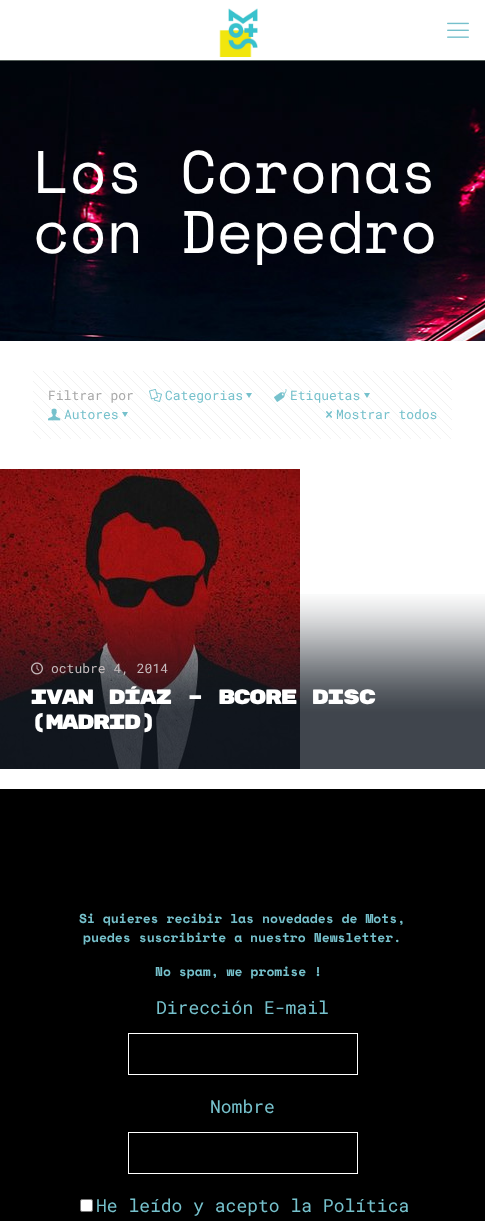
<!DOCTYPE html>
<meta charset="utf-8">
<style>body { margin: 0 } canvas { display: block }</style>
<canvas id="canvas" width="485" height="1221"></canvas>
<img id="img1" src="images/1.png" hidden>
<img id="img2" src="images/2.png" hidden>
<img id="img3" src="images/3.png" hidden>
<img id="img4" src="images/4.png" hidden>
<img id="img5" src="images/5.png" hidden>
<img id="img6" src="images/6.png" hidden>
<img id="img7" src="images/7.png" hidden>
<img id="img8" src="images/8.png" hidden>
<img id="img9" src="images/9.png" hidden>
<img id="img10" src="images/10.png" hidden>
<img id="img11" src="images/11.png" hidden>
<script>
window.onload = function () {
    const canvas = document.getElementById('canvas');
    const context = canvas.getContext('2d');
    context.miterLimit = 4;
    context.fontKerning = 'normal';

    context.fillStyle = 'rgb(255, 255, 255)';
    context.fillRect(0, 0, 485, 1221);
    context.drawImage(document.getElementById('img1'), 0, 61, 485, 280);
    context.fillStyle = 'rgb(85, 96, 90)';
    context.fillRect(0, 60, 485, 1);
    context.drawImage(document.getElementById('img2'), 219, 8, 39, 49);
    context.drawImage(document.getElementById('img3'), 447, 22, 22, 16);
    context.drawImage(document.getElementById('img4'), 33, 371, 419, 68);
    context.drawImage(document.getElementById('img5'), 149, 389, 13, 13);
    context.fillStyle = 'rgb(118, 193, 204)';
    context.beginPath();
    context.moveTo(252, 393);
    context.lineTo(249, 398);
    context.lineTo(246, 393);
    context.closePath();
    context.fill();
    context.drawImage(document.getElementById('img6'), 274, 389, 13, 13);
    context.beginPath();
    context.moveTo(370, 393);
    context.lineTo(367, 398);
    context.lineTo(364, 393);
    context.closePath();
    context.fill();
    context.drawImage(document.getElementById('img7'), 48, 408, 13, 13);
    context.beginPath();
    context.moveTo(128, 412);
    context.lineTo(125, 417);
    context.lineTo(122, 412);
    context.closePath();
    context.fill();
    context.drawImage(document.getElementById('img8'), 326, 411, 6, 7);
    context.drawImage(document.getElementById('img9'), 0, 469, 300, 300);
    context.drawImage(document.getElementById('img10'), 0, 594, 485, 175);
    context.drawImage(document.getElementById('img11'), 31, 662, 12, 13);
    context.fillStyle = 'rgb(0, 0, 0)';
    context.fillRect(0, 789, 485, 432);
    context.strokeStyle = 'rgb(255, 255, 255)';
    context.strokeRect(128.5, 1033.5, 229, 41);
    context.strokeRect(128.5, 1132.5, 229, 41);
    context.fillStyle = 'rgb(255, 255, 255)';
    context.beginPath();
    context.roundRect(80.5, 1199.5, 12, 12, 1.5);
    context.fill();
    context.strokeStyle = 'rgb(118, 118, 118)';
    context.stroke();
    context.font = '60px Space Mono';
    context.fillText('Los Coronas', 33, 193);
    context.fillText('con Depedro', 33, 253);
    context.font = '13px Roboto Mono';
    context.fillStyle = 'rgb(168, 168, 168)';
    context.fillText('Filtrar por', 48, 400);
    context.fillStyle = 'rgb(118, 193, 204)';
    context.fillText('Categorias', 165, 400);
    context.fillText('Etiquetas', 290, 400);
    context.fillText('Autores', 64, 419);
    context.fillText('Mostrar todos', 336, 419);
    context.fillStyle = 'rgb(198, 188, 190)';
    context.fillText('octubre 4, 2014', 51, 673);
    context.letterSpacing = '-2px';
    context.font = '20.75px Rubik Mono One';
    context.fillStyle = 'rgb(255, 255, 255)';
    context.fillText('Ivan Díaz – BCore Disc', 30, 704);
    context.fillText('(Madrid)', 30, 729);
    context.letterSpacing = '0px';
    context.font = 'bold 13px Space Mono';
    context.fillStyle = 'rgb(118, 193, 204)';
    context.fillText('Si quieres recibir las novedades de Mots,', 79, 923);
    context.fillText('puedes suscribirte a nuestro Newsletter.', 83, 942);
    context.fillText('No spam, we promise !', 155, 976);
    context.font = '18px Roboto Mono';
    context.fillText('Dirección E-mail', 156, 1014);
    context.fillText('Nombre', 210, 1113);
    context.fillText('He leído y acepto la Política', 96, 1212);
};
</script>
